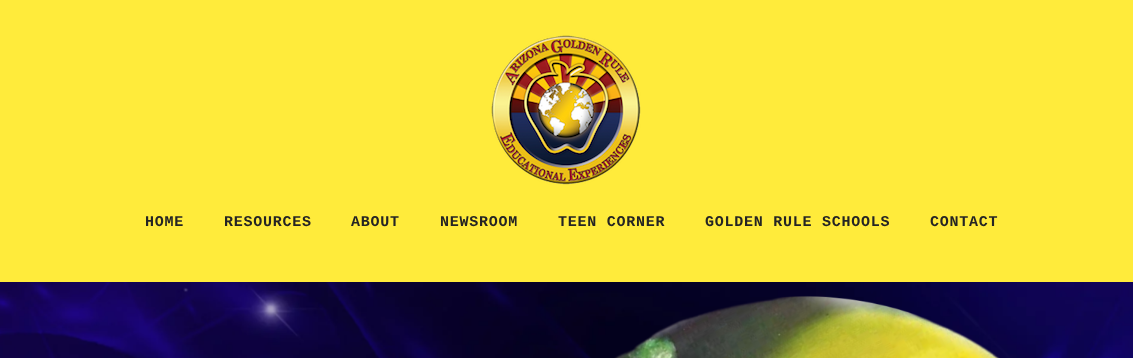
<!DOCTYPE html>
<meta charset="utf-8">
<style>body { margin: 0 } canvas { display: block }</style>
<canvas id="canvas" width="1133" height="358"></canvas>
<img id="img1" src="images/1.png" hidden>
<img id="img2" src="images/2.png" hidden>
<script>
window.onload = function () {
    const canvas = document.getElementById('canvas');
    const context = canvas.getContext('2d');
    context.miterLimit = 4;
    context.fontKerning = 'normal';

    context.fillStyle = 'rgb(255, 235, 59)';
    context.fillRect(0, 0, 1133, 358);
    context.drawImage(document.getElementById('img1'), 491, 35, 150, 150);
    context.drawImage(document.getElementById('img2'), 0, 282, 1133, 76);
    context.letterSpacing = '0.75px';
    context.font = 'bold 15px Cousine';
    context.fillStyle = 'rgb(36, 36, 36)';
    context.fillText('HOME', 145, 226);
    context.fillText('RESOURCES', 224, 226);
    context.fillText('ABOUT', 351, 226);
    context.fillText('NEWSROOM', 440, 226);
    context.fillText('TEEN CORNER', 558, 226);
    context.fillText('GOLDEN RULE SCHOOLS', 705, 226);
    context.fillText('CONTACT', 930, 226);
};
</script>
